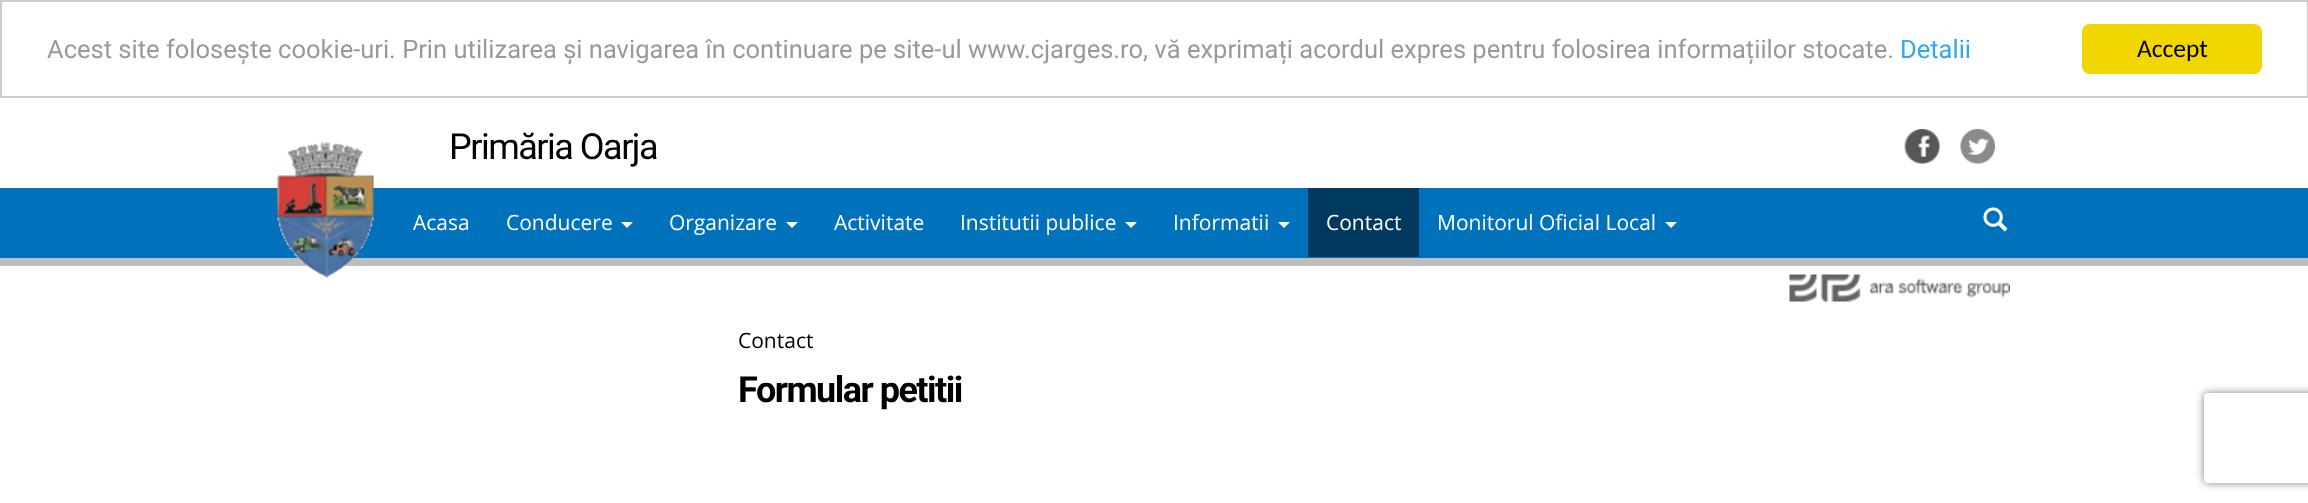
<!DOCTYPE html>
<meta charset="utf-8">
<style>body { margin: 0 } canvas { display: block }</style>
<canvas id="canvas" width="2308" height="503"></canvas>
<img id="img1" src="images/1.png" hidden>
<img id="img2" src="images/2.png" hidden>
<img id="img3" src="images/3.png" hidden>
<img id="img4" src="images/4.png" hidden>
<img id="img5" src="images/5.png" hidden>
<script>
window.onload = function () {
    const canvas = document.getElementById('canvas');
    const context = canvas.getContext('2d');
    context.miterLimit = 4;
    context.fontKerning = 'normal';

    context.fillStyle = 'rgb(255, 255, 255)';
    context.fillRect(0, 0, 2308, 503);
    context.strokeStyle = 'rgb(204, 204, 204)';
    context.lineWidth = 2;
    context.strokeRect(1, 1, 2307, 96);
    context.fillStyle = 'rgb(241, 214, 0)';
    context.beginPath();
    context.roundRect(2082, 24, 180, 50, 8);
    context.fill();
    context.drawImage(document.getElementById('img1'), 1904, 129, 36, 35);
    context.drawImage(document.getElementById('img2'), 1960, 129, 35, 35);
    context.fillStyle = 'rgb(0, 114, 188)';
    context.fillRect(0, 188, 2308, 70);
    context.fillStyle = 'rgb(190, 190, 190)';
    context.fillRect(0, 258, 2308, 8);
    context.drawImage(document.getElementById('img3'), 277, 142, 97, 136);
    context.fillStyle = 'rgb(255, 255, 255)';
    context.beginPath();
    context.moveTo(621, 222);
    context.lineTo(633, 222);
    context.lineTo(627, 228);
    context.closePath();
    context.fill();
    context.beginPath();
    context.moveTo(786, 222);
    context.lineTo(798, 222);
    context.lineTo(792, 228);
    context.closePath();
    context.fill();
    context.beginPath();
    context.moveTo(1125, 222);
    context.lineTo(1137, 222);
    context.lineTo(1131, 228);
    context.closePath();
    context.fill();
    context.beginPath();
    context.moveTo(1278, 222);
    context.lineTo(1290, 222);
    context.lineTo(1284, 228);
    context.closePath();
    context.fill();
    context.fillStyle = 'rgb(0, 57, 94)';
    context.fillRect(1308, 188, 111, 69);
    context.fillStyle = 'rgb(255, 255, 255)';
    context.beginPath();
    context.moveTo(1665, 222);
    context.lineTo(1677, 222);
    context.lineTo(1671, 228);
    context.closePath();
    context.fill();
    context.drawImage(document.getElementById('img4'), 1983, 207, 25, 25);
    context.drawImage(document.getElementById('img5'), 1789, 274, 221, 28);
    context.save();
    context.beginPath();
    context.moveTo(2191, 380);
    context.lineTo(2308, 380);
    context.lineTo(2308, 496);
    context.lineTo(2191, 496);
    context.closePath();
    context.moveTo(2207, 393);
    context.lineTo(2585, 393);
    context.bezierCurveTo(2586.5, 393, 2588, 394.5, 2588, 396);
    context.lineTo(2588, 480);
    context.bezierCurveTo(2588, 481.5, 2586.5, 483, 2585, 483);
    context.lineTo(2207, 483);
    context.bezierCurveTo(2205.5, 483, 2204, 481.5, 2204, 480);
    context.lineTo(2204, 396);
    context.bezierCurveTo(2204, 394.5, 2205.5, 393, 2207, 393);
    context.closePath();
    context.clip('evenodd');
    context.fillStyle = 'rgb(128, 128, 128)';
    context.filter = 'blur(4px)';
    context.beginPath();
    context.roundRect(2204, 393, 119, 90, 3);
    context.fill();
    context.filter = 'none';
    context.restore();
    context.font = '25.5px Roboto';
    context.fillStyle = 'rgb(153, 153, 153)';
    context.fillText('Acest site folosește cookie-uri. Prin utilizarea și navigarea în continuare pe site-ul www.cjarges.ro, vă exprimați acordul expres pentru folosirea informațiilor stocate.', 47, 58);
    context.fillStyle = 'rgb(49, 168, 240)';
    context.fillText('Detalii', 1900, 58);
    context.font = '25.5px Carlito';
    context.fillStyle = 'rgb(0, 0, 0)';
    context.fillText('Accept', 2137, 57);
    context.letterSpacing = '-1.5px';
    context.font = '36px Roboto';
    context.fillText('Primăria Oarja', 449, 159);
    context.letterSpacing = '0px';
    context.font = '21px Open Sans';
    context.fillStyle = 'rgb(255, 255, 255)';
    context.fillText('Acasa', 413, 230);
    context.fillText('Conducere', 506, 230);
    context.fillText('Organizare', 669, 230);
    context.fillText('Activitate', 834, 230);
    context.fillText('Institutii publice', 960, 230);
    context.fillText('Informatii', 1173, 230);
    context.fillText('Contact', 1326, 230);
    context.fillText('Monitorul Oficial Local', 1437, 230);
    context.fillStyle = 'rgb(0, 0, 0)';
    context.fillText('Contact', 738, 348);
    context.letterSpacing = '-1.5px';
    context.font = 'bold 36px Roboto';
    context.fillText('Formular petitii', 738, 402);
};
</script>
